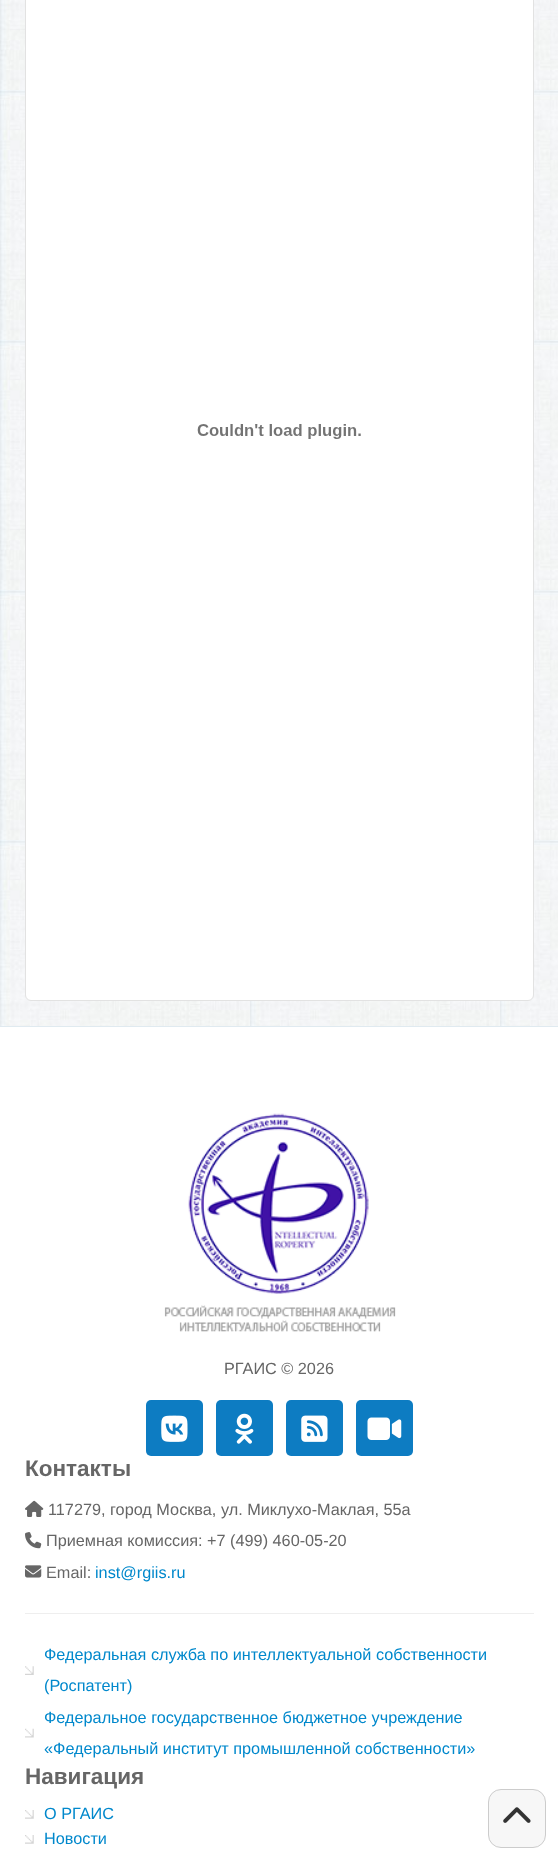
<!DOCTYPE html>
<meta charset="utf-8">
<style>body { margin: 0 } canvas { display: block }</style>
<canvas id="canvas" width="558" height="1860"></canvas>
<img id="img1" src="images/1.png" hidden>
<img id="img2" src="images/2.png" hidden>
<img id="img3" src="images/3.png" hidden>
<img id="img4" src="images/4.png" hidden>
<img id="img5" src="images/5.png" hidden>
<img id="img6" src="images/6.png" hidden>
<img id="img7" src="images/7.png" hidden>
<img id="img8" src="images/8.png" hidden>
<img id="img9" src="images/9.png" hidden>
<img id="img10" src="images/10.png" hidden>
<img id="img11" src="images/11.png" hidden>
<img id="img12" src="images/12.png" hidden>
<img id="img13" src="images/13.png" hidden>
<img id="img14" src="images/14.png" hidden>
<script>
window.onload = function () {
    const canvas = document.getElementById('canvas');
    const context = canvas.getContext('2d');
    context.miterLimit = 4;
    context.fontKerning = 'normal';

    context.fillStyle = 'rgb(255, 255, 255)';
    context.fillRect(0, 0, 558, 1860);
    context.drawImage(document.getElementById('img1'), 0, 0, 558, 1026);
    context.beginPath();
    context.roundRect(25.5, -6.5, 508, 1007, 5.5);
    context.fill();
    context.strokeStyle = 'rgb(226, 226, 226)';
    context.stroke();
    context.drawImage(document.getElementById('img2'), 197, 424, 164, 15);
    context.fillStyle = 'rgb(224, 234, 240)';
    context.fillRect(0, 1026, 558, 1);
    context.drawImage(document.getElementById('img3'), 164, 1113, 232, 219);
    context.fillStyle = 'rgb(13, 124, 194)';
    context.beginPath();
    context.roundRect(146, 1400, 57, 56, 5);
    context.fill();
    context.drawImage(document.getElementById('img4'), 161, 1415, 27, 27);
    context.beginPath();
    context.roundRect(216, 1400, 57, 56, 5);
    context.fill();
    context.drawImage(document.getElementById('img5'), 235, 1413, 19, 31);
    context.beginPath();
    context.roundRect(286, 1400, 57, 56, 5);
    context.fill();
    context.drawImage(document.getElementById('img6'), 301, 1415, 27, 27);
    context.beginPath();
    context.roundRect(356, 1400, 57, 56, 5);
    context.fill();
    context.drawImage(document.getElementById('img7'), 367, 1417, 35, 23);
    context.drawImage(document.getElementById('img8'), 25, 1500, 19, 17);
    context.drawImage(document.getElementById('img9'), 25, 1532, 17, 17);
    context.drawImage(document.getElementById('img10'), 25, 1565, 17, 13);
    context.fillStyle = 'rgb(238, 238, 238)';
    context.fillRect(25, 1613, 509, 1);
    context.drawImage(document.getElementById('img11'), 25, 1666, 9, 9);
    context.drawImage(document.getElementById('img12'), 25, 1728, 9, 10);
    context.drawImage(document.getElementById('img13'), 25, 1810, 9, 9);
    context.drawImage(document.getElementById('img13'), 25, 1835, 9, 9);
    context.fillStyle = 'rgb(247, 247, 247)';
    context.beginPath();
    context.roundRect(488.5, 1789.5, 57, 58, 12.5);
    context.fill();
    context.strokeStyle = 'rgb(204, 204, 204)';
    context.stroke();
    context.drawImage(document.getElementById('img14'), 503, 1807, 28, 16);
    context.font = '16.25px Liberation Sans';
    context.fillStyle = 'rgb(102, 102, 102)';
    context.fillText('РГАИС © 2026', 224, 1374);
    context.font = 'bold 22.5px Liberation Sans';
    context.fillText('Контакты', 25, 1476);
    context.font = '16.25px Liberation Sans';
    context.fillText('117279, город Москва, ул. Миклухо-Маклая, 55а', 48, 1515);
    context.fillText('Приемная комиссия: +7 (499) 460-05-20', 46, 1546);
    context.fillText('Email:', 46, 1578);
    context.fillStyle = 'rgb(0, 136, 204)';
    context.fillText('inst@rgiis.ru', 95, 1578);
    context.fillText('Федеральная служба по интеллектуальной собственности', 44, 1660);
    context.fillText('(Роспатент)', 44, 1691);
    context.fillText('Федеральное государственное бюджетное учреждение', 44, 1723);
    context.fillText('«Федеральный институт промышленной собственности»', 44, 1754);
    context.font = 'bold 22.5px Liberation Sans';
    context.fillStyle = 'rgb(102, 102, 102)';
    context.fillText('Навигация', 25, 1784);
    context.font = '16.25px Liberation Sans';
    context.fillStyle = 'rgb(0, 136, 204)';
    context.fillText('О РГАИС', 44, 1819);
    context.fillText('Новости', 44, 1844);
};
</script>
